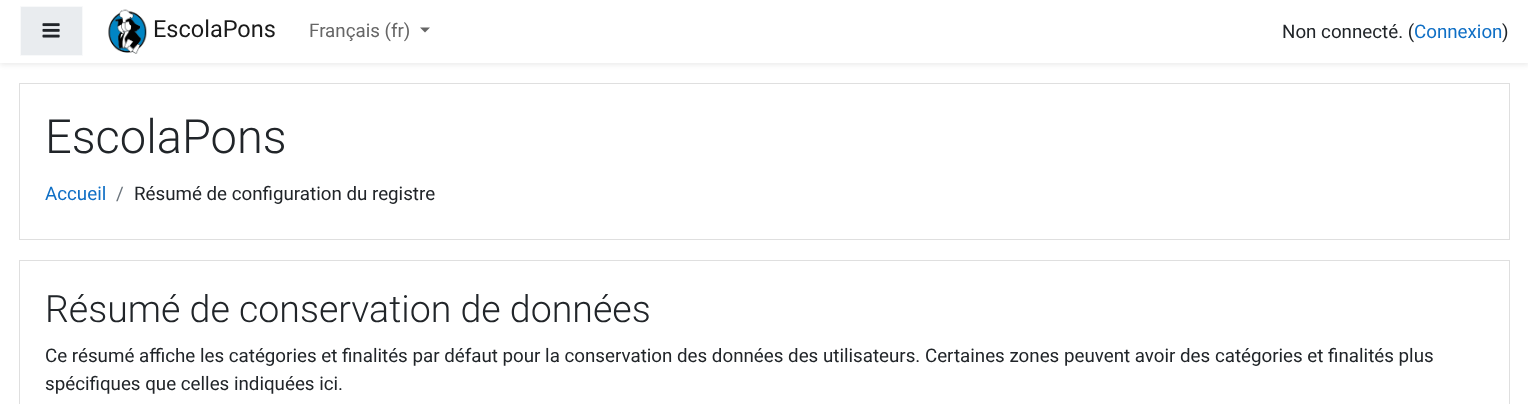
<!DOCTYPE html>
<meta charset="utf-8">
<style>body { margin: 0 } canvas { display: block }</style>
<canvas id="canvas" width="1528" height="404"></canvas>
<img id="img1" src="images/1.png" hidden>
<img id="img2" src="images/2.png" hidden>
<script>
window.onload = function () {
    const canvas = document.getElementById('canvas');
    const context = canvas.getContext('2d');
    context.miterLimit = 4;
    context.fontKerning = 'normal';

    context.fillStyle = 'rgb(255, 255, 255)';
    context.fillRect(0, 0, 1528, 404);
    context.fillStyle = 'rgba(0, 0, 0, 0.08)';
    context.filter = 'blur(2.5px)';
    context.beginPath();
    context.rect(0, 3, 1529, 62);
    context.fill();
    context.filter = 'none';
    context.fillStyle = 'rgb(255, 255, 255)';
    context.fillRect(0, 0, 1528, 63);
    context.fillStyle = 'rgb(233, 236, 239)';
    context.beginPath();
    context.rect(20.5, 6.5, 62, 49);
    context.fill();
    context.strokeStyle = 'rgb(248, 249, 250)';
    context.stroke();
    context.drawImage(document.getElementById('img1'), 42, 23, 18, 15);
    context.drawImage(document.getElementById('img2'), 108, 9, 39, 45);
    context.fillStyle = 'rgb(102, 102, 102)';
    context.beginPath();
    context.moveTo(420, 27.5);
    context.lineTo(430, 27.5);
    context.lineTo(425, 32.5);
    context.closePath();
    context.fill();
    context.strokeStyle = 'rgb(223, 223, 223)';
    context.strokeRect(19.5, 83.5, 1490, 156);
    context.strokeRect(19.5, 260.5, 1490, 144);
    context.font = '23.5px Roboto';
    context.fillStyle = 'rgb(26, 26, 26)';
    context.fillText('EscolaPons', 153, 37);
    context.font = '18.75px Roboto';
    context.fillStyle = 'rgb(102, 102, 102)';
    context.fillText('Français (fr)', 309, 37);
    context.fillStyle = 'rgb(33, 37, 41)';
    context.fillText('Non connecté. (', 1282, 38);
    context.fillStyle = 'rgb(15, 111, 197)';
    context.fillText('Connexion', 1414, 38);
    context.fillStyle = 'rgb(33, 37, 41)';
    context.fillText(')', 1502, 38);
    context.font = '300 47px Roboto';
    context.fillText('EscolaPons', 45, 153);
    context.font = '18.75px Roboto';
    context.fillStyle = 'rgb(15, 111, 197)';
    context.fillText('Accueil', 45, 200);
    context.fillStyle = 'rgb(108, 117, 125)';
    context.fillText('/', 116, 200);
    context.fillStyle = 'rgb(33, 37, 41)';
    context.fillText('Résumé de configuration du registre', 134, 200);
    context.font = '300 37.5px Roboto';
    context.fillText('Résumé de conservation de données', 45, 322);
    context.font = '18.75px Roboto';
    context.fillText('Ce résumé affiche les catégories et finalités par défaut pour la conservation des données des utilisateurs. Certaines zones peuvent avoir des catégories et finalités plus', 45, 362);
    context.fillText('spécifiques que celles indiquées ici.', 45, 390);
};
</script>
